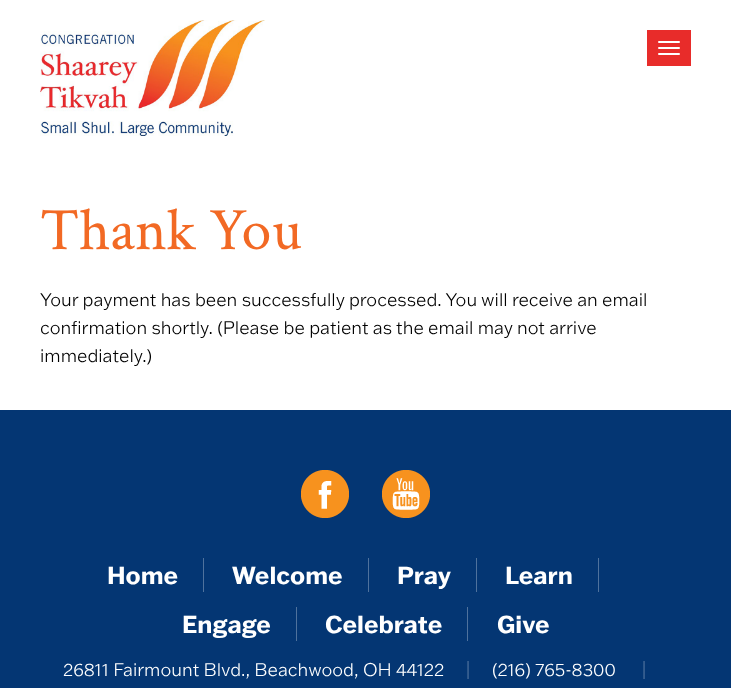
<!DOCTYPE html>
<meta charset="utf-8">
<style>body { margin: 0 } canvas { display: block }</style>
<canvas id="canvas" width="731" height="688"></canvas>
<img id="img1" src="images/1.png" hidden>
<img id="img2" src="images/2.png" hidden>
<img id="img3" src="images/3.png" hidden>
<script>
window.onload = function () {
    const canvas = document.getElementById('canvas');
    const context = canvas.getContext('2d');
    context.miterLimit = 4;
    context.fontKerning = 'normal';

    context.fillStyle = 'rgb(255, 255, 255)';
    context.fillRect(0, 0, 731, 688);
    context.drawImage(document.getElementById('img1'), 40, 20, 225, 116);
    context.fillStyle = 'rgb(232, 44, 42)';
    context.fillRect(647, 30, 44, 36);
    context.fillStyle = 'rgb(255, 255, 255)';
    context.beginPath();
    context.roundRect(658, 41, 22, 2, 1);
    context.fill();
    context.beginPath();
    context.roundRect(658, 47, 22, 2, 1);
    context.fill();
    context.beginPath();
    context.roundRect(658, 53, 22, 2, 1);
    context.fill();
    context.fillStyle = 'rgb(4, 54, 115)';
    context.fillRect(0, 410, 731, 278);
    context.drawImage(document.getElementById('img2'), 301, 470, 48, 48);
    context.drawImage(document.getElementById('img3'), 382, 470, 48, 48);
    context.fillStyle = 'rgb(79, 114, 157)';
    context.fillRect(203, 558, 1, 34);
    context.fillRect(368, 558, 1, 34);
    context.fillRect(476, 558, 1, 34);
    context.fillRect(598, 558, 1, 34);
    context.fillRect(296, 607, 1, 34);
    context.fillRect(467, 607, 1, 34);
    context.font = '60px Crimson Text';
    context.fillStyle = 'rgb(242, 105, 36)';
    context.fillText('Thank You', 40, 249);
    context.font = '300 18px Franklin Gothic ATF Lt';
    context.fillStyle = 'rgb(0, 0, 0)';
    context.fillText('Your payment has been successfully processed. You will receive an email', 40, 306);
    context.fillText('confirmation shortly. (Please be patient as the email may not arrive', 40, 334);
    context.fillText('immediately.)', 40, 362);
    context.font = 'bold 24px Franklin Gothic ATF';
    context.fillStyle = 'rgb(255, 255, 255)';
    context.fillText('Home', 107, 584);
    context.fillText('Welcome', 232, 584);
    context.fillText('Pray', 397, 584);
    context.fillText('Learn', 505, 584);
    context.fillText('Engage', 182, 633);
    context.fillText('Celebrate', 325, 633);
    context.fillText('Give', 497, 633);
    context.font = '300 18px Franklin Gothic ATF Lt';
    context.fillText('26811 Fairmount Blvd., Beachwood, OH 44122', 63, 676);
    context.fillStyle = 'rgb(79, 114, 157)';
    context.fillText('|', 464, 676);
    context.fillStyle = 'rgb(255, 255, 255)';
    context.fillText('(216) 765-8300', 492, 676);
    context.fillStyle = 'rgb(79, 114, 157)';
    context.fillText('|', 640, 676);
};
</script>
